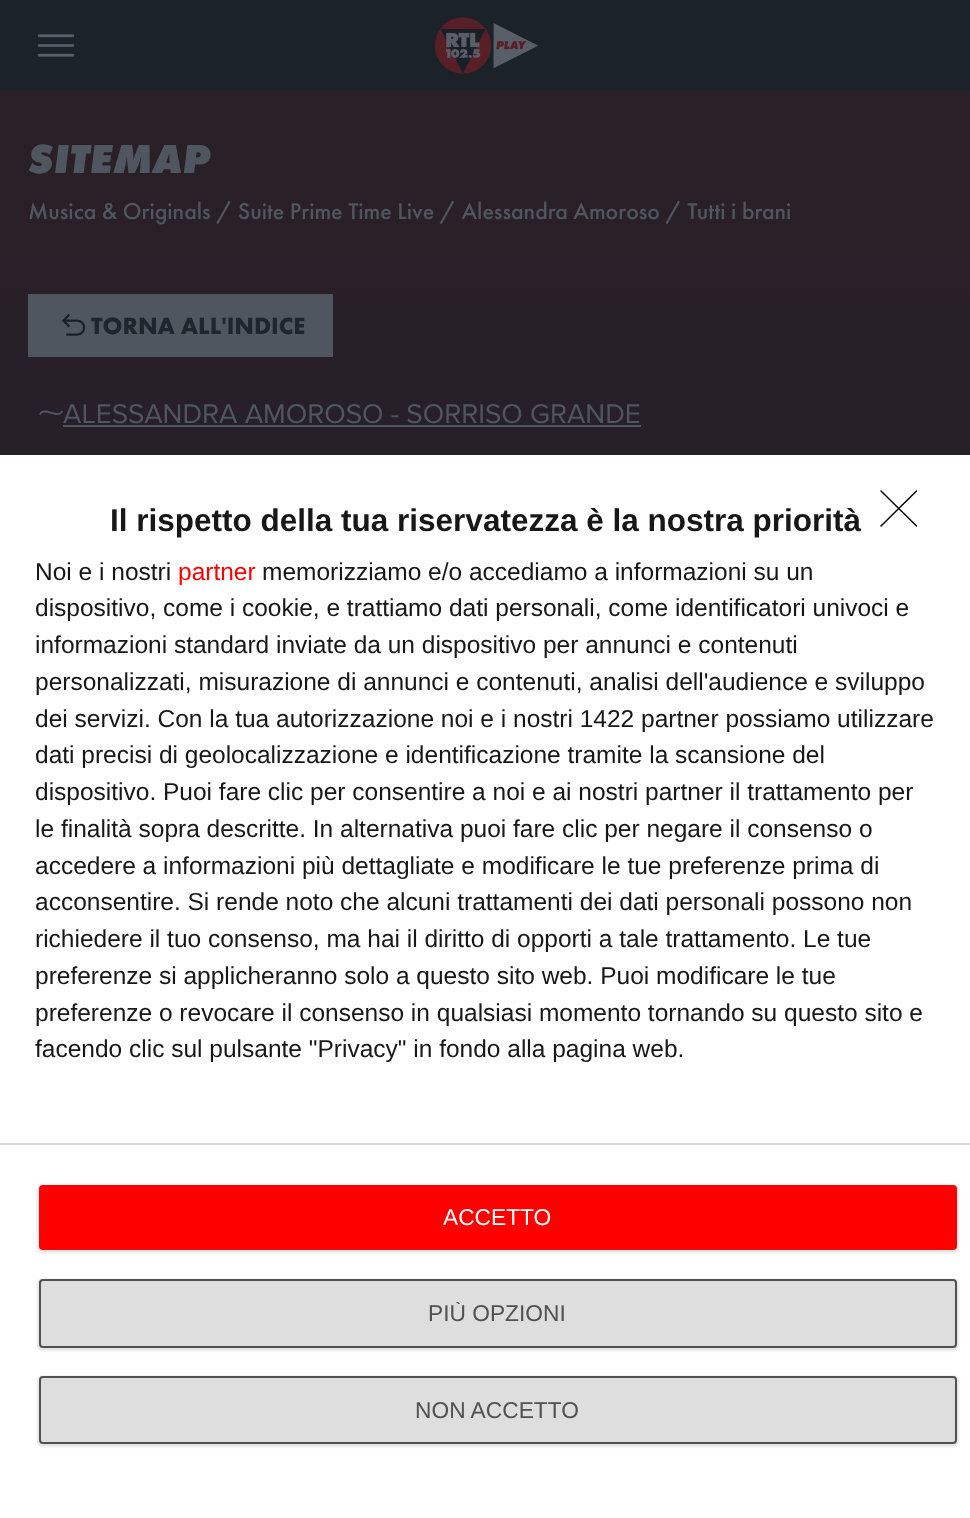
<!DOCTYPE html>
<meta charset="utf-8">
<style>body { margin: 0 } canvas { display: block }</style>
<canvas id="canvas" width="970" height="1518"></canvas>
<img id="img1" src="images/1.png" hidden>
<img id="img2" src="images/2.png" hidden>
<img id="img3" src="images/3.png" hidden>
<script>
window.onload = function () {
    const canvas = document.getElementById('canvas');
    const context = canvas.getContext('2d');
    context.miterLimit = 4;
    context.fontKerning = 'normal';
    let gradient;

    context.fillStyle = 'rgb(255, 255, 255)';
    context.fillRect(0, 0, 970, 1518);
    gradient = context.createLinearGradient(486, 0, 486, 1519);
    gradient.addColorStop(0, 'rgb(43, 31, 39)');
    gradient.addColorStop(1, 'rgb(28, 34, 42)');
    context.fillStyle = gradient;
    context.fillRect(0, 91, 970, 364);
    context.fillStyle = 'rgb(28, 34, 42)';
    context.fillRect(0, 0, 970, 91);
    context.drawImage(document.getElementById('img1'), 37, 34, 38, 23);
    context.drawImage(document.getElementById('img2'), 434, 17, 104, 57);
    context.fillStyle = 'rgb(80, 86, 95)';
    context.fillRect(28, 294, 305, 63);
    context.drawImage(document.getElementById('img3'), 61, 313, 25, 23);
    context.fillRect(63, 425, 578, 2);
    context.save();
    context.beginPath();
    context.rect(880, 490, 37, 39);
    context.clip();
    context.beginPath();
    context.moveTo(881, 491);
    context.lineTo(916.5, 526);
    context.moveTo(916.5, 491);
    context.lineTo(881, 526);
    context.strokeStyle = 'rgb(0, 0, 0)';
    context.lineWidth = 1.5;
    context.lineCap = 'round';
    context.lineJoin = 'round';
    context.stroke();
    context.restore();
    context.fillStyle = 'rgb(216, 216, 216)';
    context.fillRect(0, 1143, 970, 2);
    context.fillStyle = 'rgba(0, 0, 0, 0.1)';
    context.filter = 'blur(1px)';
    context.beginPath();
    context.roundRect(37, 1185, 922, 68, 5);
    context.fill();
    context.filter = 'none';
    context.fillStyle = 'rgb(255, 0, 0)';
    context.beginPath();
    context.roundRect(39, 1185, 918, 65, 4);
    context.fill();
    context.fillStyle = 'rgba(0, 0, 0, 0.1)';
    context.filter = 'blur(1px)';
    context.beginPath();
    context.roundRect(37, 1279, 922, 72, 5);
    context.fill();
    context.filter = 'none';
    context.fillStyle = 'rgb(222, 222, 222)';
    context.beginPath();
    context.roundRect(40, 1280, 916, 67, 3);
    context.fill();
    context.strokeStyle = 'rgb(81, 81, 81)';
    context.lineWidth = 2;
    context.stroke();
    context.fillStyle = 'rgba(0, 0, 0, 0.1)';
    context.filter = 'blur(1px)';
    context.beginPath();
    context.roundRect(37, 1376, 922, 71, 5);
    context.fill();
    context.filter = 'none';
    context.fillStyle = 'rgb(222, 222, 222)';
    context.beginPath();
    context.roundRect(40, 1377, 916, 66, 3);
    context.fill();
    context.stroke();
    context.font = 'italic 800 42px Futura PT';
    context.fillStyle = 'rgb(80, 86, 95)';
    context.fillText('SITEMAP', 28, 173);
    context.font = '500 23.8px Futura PT';
    context.fillText('Musica & Originals / Suite Prime Time Live / Alessandra Amoroso / Tutti i brani', 28, 219);
    context.font = 'bold 24.5px Futura PT';
    context.fillStyle = 'rgb(31, 37, 45)';
    context.fillText('TORNA ALL\'INDICE', 91, 334);
    context.font = '28px Noto Sans';
    context.fillStyle = 'rgb(80, 86, 95)';
    context.fillText('⁓', 37, 421);
    context.font = '28px Proxima Nova';
    context.fillText('ALESSANDRA AMOROSO - SORRISO GRANDE', 63, 423);
    context.font = 'bold 31.5px Liberation Sans';
    context.fillStyle = 'rgb(23, 23, 23)';
    context.fillText('Il rispetto della tua riservatezza è la nostra priorità', 110, 531);
    context.font = '24.5px Liberation Sans';
    context.fillText('Noi e i nostri', 35, 580);
    context.fillStyle = 'rgb(255, 0, 0)';
    context.fillText('partner', 178, 580);
    context.fillStyle = 'rgb(23, 23, 23)';
    context.fillText('memorizziamo e/o accediamo a informazioni su un', 262, 580);
    context.fillText('dispositivo, come i cookie, e trattiamo dati personali, come identificatori univoci e', 35, 616);
    context.fillText('informazioni standard inviate da un dispositivo per annunci e contenuti', 35, 653);
    context.fillText('personalizzati, misurazione di annunci e contenuti, analisi dell\'audience e sviluppo', 35, 690);
    context.fillText('dei servizi. Con la tua autorizzazione noi e i nostri 1422 partner possiamo utilizzare', 35, 727);
    context.fillText('dati precisi di geolocalizzazione e identificazione tramite la scansione del', 35, 763);
    context.fillText('dispositivo. Puoi fare clic per consentire a noi e ai nostri partner il trattamento per', 35, 800);
    context.fillText('le finalità sopra descritte. In alternativa puoi fare clic per negare il consenso o', 35, 837);
    context.fillText('accedere a informazioni più dettagliate e modificare le tue preferenze prima di', 35, 874);
    context.fillText('acconsentire. Si rende noto che alcuni trattamenti dei dati personali possono non', 35, 910);
    context.fillText('richiedere il tuo consenso, ma hai il diritto di opporti a tale trattamento. Le tue', 35, 947);
    context.fillText('preferenze si applicheranno solo a questo sito web. Puoi modificare le tue', 35, 984);
    context.fillText('preferenze o revocare il consenso in qualsiasi momento tornando su questo sito e', 35, 1021);
    context.fillText('facendo clic sul pulsante "Privacy" in fondo alla pagina web.', 35, 1057);
    context.font = '22.75px Liberation Sans';
    context.fillStyle = 'rgb(255, 255, 255)';
    context.fillText('ACCETTO', 443, 1225);
    context.save();
    context.beginPath();
    context.rect(429, 1302, 136, 23);
    context.clip();
    context.fillStyle = 'rgb(81, 81, 81)';
    context.fillText('PIÙ OPZIONI', 428, 1321);
    context.restore();
    context.fillStyle = 'rgb(81, 81, 81)';
    context.fillText('NON ACCETTO', 415, 1418);
};
</script>
